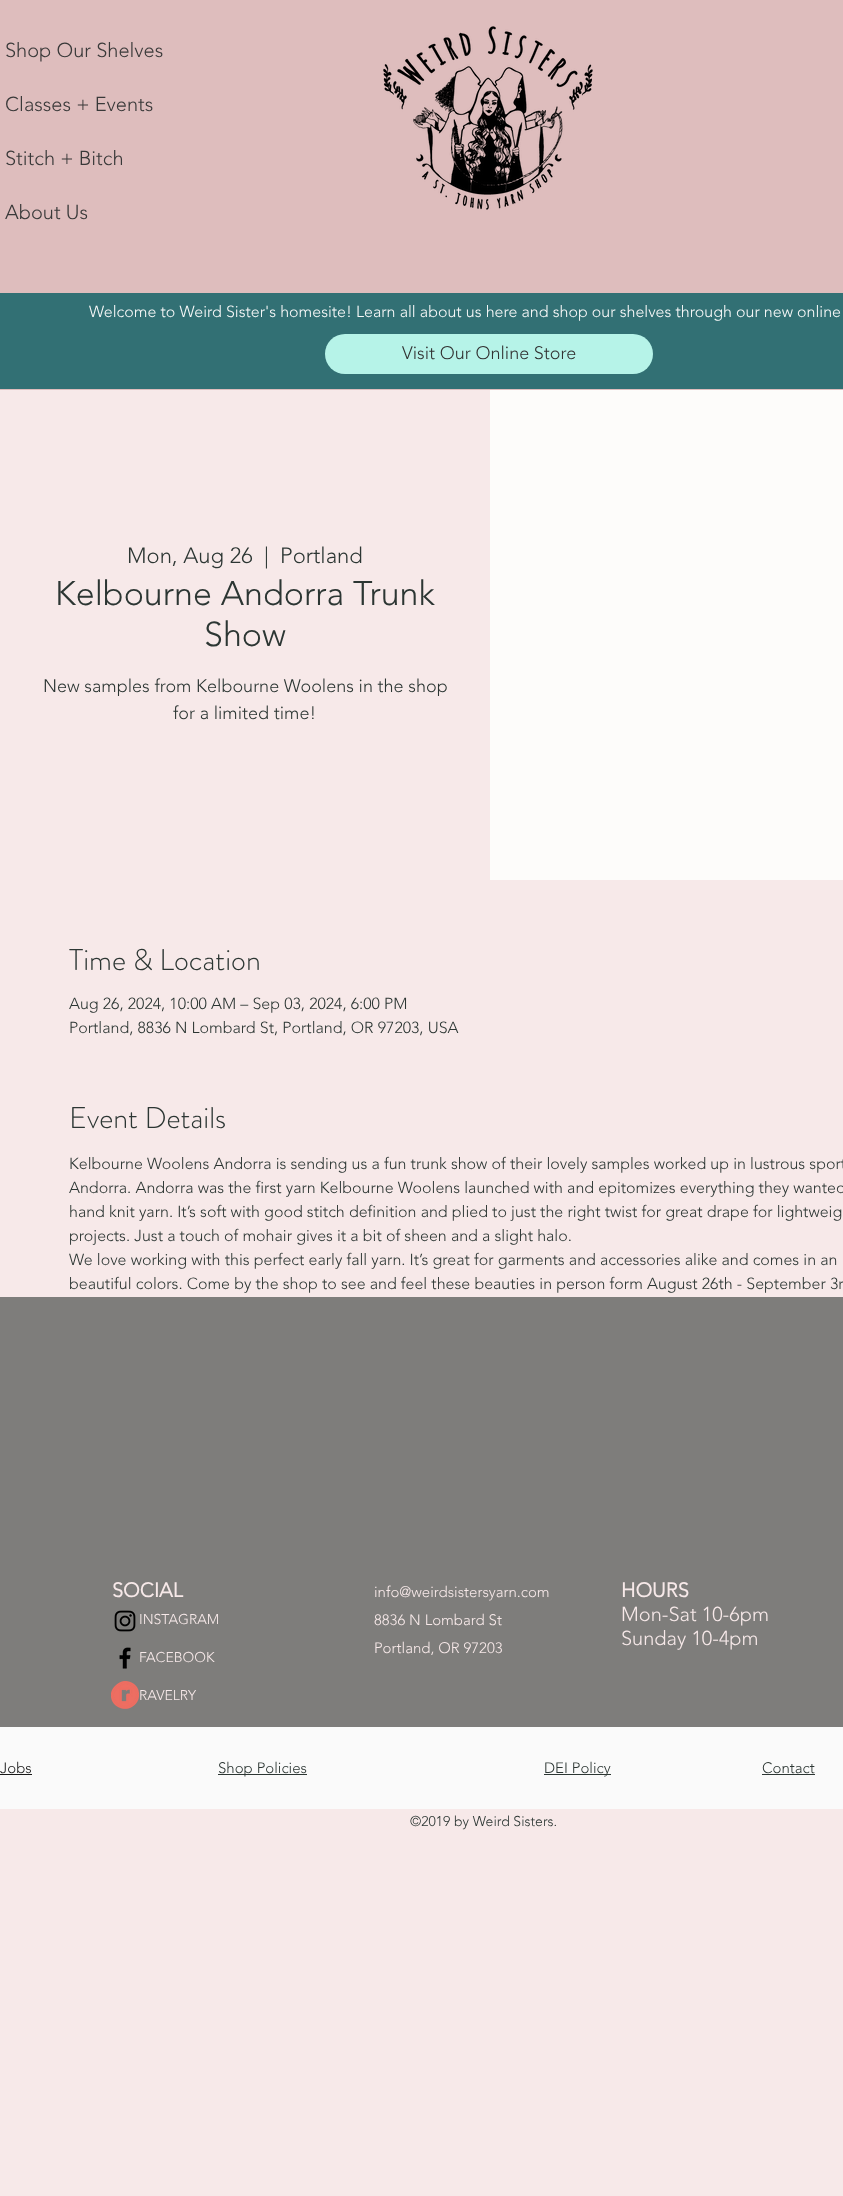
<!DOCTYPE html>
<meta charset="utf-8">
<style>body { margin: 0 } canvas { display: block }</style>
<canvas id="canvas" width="843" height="2196"></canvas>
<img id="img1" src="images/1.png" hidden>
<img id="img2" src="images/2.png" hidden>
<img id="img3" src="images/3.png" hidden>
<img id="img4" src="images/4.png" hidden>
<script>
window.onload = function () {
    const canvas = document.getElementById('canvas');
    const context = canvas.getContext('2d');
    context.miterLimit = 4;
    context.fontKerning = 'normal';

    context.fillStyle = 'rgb(247, 233, 233)';
    context.fillRect(0, 0, 843, 2196);
    context.fillStyle = 'rgb(222, 189, 189)';
    context.fillRect(0, 0, 843, 390);
    context.drawImage(document.getElementById('img1'), 383, 26, 210, 184);
    context.fillStyle = 'rgb(50, 112, 116)';
    context.fillRect(0, 293, 843, 96);
    context.fillStyle = 'rgb(182, 243, 232)';
    context.beginPath();
    context.roundRect(325, 334, 328, 40, 20);
    context.fill();
    context.fillStyle = 'rgb(253, 252, 250)';
    context.fillRect(490, 390, 353, 490);
    context.fillStyle = 'rgb(126, 125, 123)';
    context.fillRect(0, 1297, 843, 430);
    context.drawImage(document.getElementById('img2'), 114, 1610, 22, 22);
    context.drawImage(document.getElementById('img3'), 119, 1647, 12, 22);
    context.drawImage(document.getElementById('img4'), 111, 1681, 28, 28);
    context.fillStyle = 'rgb(250, 250, 250)';
    context.fillRect(0, 1727, 843, 82);
    context.fillStyle = 'rgb(25, 25, 25)';
    context.fillRect(0, 1774, 32, 1);
    context.fillStyle = 'rgb(44, 54, 51)';
    context.fillRect(218, 1774, 89, 1);
    context.fillRect(762, 1774, 53, 1);
    context.fillRect(544, 1774, 67, 1);
    context.font = '300 20px "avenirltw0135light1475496"';
    context.fillStyle = 'rgb(57, 57, 57)';
    context.fillText('Shop Our Shelves', 5, 57);
    context.fillText('Classes + Events', 5, 111);
    context.fillText('Stitch + Bitch', 5, 165);
    context.fillText('About Us', 5, 219);
    context.font = '300 16px "avenirltw0135light1475496"';
    context.fillStyle = 'rgb(250, 250, 250)';
    context.fillText('Welcome to Weird Sister\'s homesite! Learn all about us here and shop our shelves through our new online', 89, 317);
    context.font = '300 18px "avenirltw0135light1475496"';
    context.fillStyle = 'rgb(50, 50, 50)';
    context.fillText('Visit Our Online Store', 402, 359);
    context.font = '300 22px "avenirltw0135light1475496"';
    context.fillStyle = 'rgb(44, 54, 51)';
    context.fillText('Mon, Aug 26', 127, 563);
    context.fillText('|', 264, 563);
    context.fillText('Portland', 280, 563);
    context.font = '300 34px "avenirltw0135light1475496"';
    context.fillText('Kelbourne Andorra Trunk', 55, 605);
    context.fillText('Show', 204, 646);
    context.font = '300 18px "avenirltw0135light1475496"';
    context.fillText('New samples from Kelbourne Woolens in the shop', 43, 692);
    context.fillText('for a limited time!', 173, 719);
    context.font = '300 30px "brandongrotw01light"';
    context.fillText('Time & Location', 69, 970);
    context.font = '300 16px "avenirltw0135light1475496"';
    context.fillText('Aug 26, 2024, 10:00 AM – Sep 03, 2024, 6:00 PM', 69, 1009);
    context.fillText('Portland, 8836 N Lombard St, Portland, OR 97203, USA', 69, 1033);
    context.font = '300 30px "brandongrotw01light"';
    context.fillText('Event Details', 69, 1128);
    context.font = '300 16px "avenirltw0135light1475496"';
    context.fillText('Kelbourne Woolens Andorra is sending us a fun trunk show of their lovely samples worked up in lustrous sport', 69, 1169);
    context.fillText('Andorra. Andorra was the first yarn Kelbourne Woolens launched with and epitomizes everything they wanted', 69, 1193);
    context.fillText('hand knit yarn. It’s soft with good stitch definition and plied to just the right twist for great drape for lightweig', 69, 1217);
    context.fillText('projects. Just a touch of mohair gives it a bit of sheen and a slight halo.', 69, 1241);
    context.fillText('We love working with this perfect early fall yarn. It’s great for garments and accessories alike and comes in an', 69, 1265);
    context.fillText('beautiful colors. Come by the shop to see and feel these beauties in person form August 26th - September 3r', 69, 1289);
    context.font = 'bold 20px "avenirltw0135light1475496"';
    context.fillStyle = 'rgb(247, 233, 233)';
    context.fillText('SOCIAL', 112, 1597);
    context.font = '300 15px "avenirltw0135light1475496"';
    context.fillText('info@weirdsistersyarn.com', 374, 1597);
    context.fillText('8836 N Lombard St', 374, 1625);
    context.fillText('Portland, OR 97203', 374, 1653);
    context.font = 'bold 20px "avenirltw0135light1475496"';
    context.fillText('HOURS', 621, 1597);
    context.font = '300 20px "avenirltw0135light1475496"';
    context.fillText('Mon-Sat 10-6pm', 621, 1621);
    context.fillText('Sunday 10-4pm', 621, 1645);
    context.font = '300 14px "avenirltw0135light1475496"';
    context.fillText('INSTAGRAM', 139, 1624);
    context.fillText('FACEBOOK', 139, 1662);
    context.fillText('RAVELRY', 139, 1700);
    context.font = '300 15px "avenirltw0135light1475496"';
    context.fillStyle = 'rgb(25, 25, 25)';
    context.fillText('Jobs', 0, 1773);
    context.fillStyle = 'rgb(44, 54, 51)';
    context.fillText('Shop Policies', 218, 1773);
    context.fillText('Contact', 762, 1773);
    context.fillText('DEI Policy', 544, 1773);
    context.font = '300 14px "avenirltw0135light1475496"';
    context.fillText('©2019 by Weird Sisters.', 410, 1826);
};
</script>
